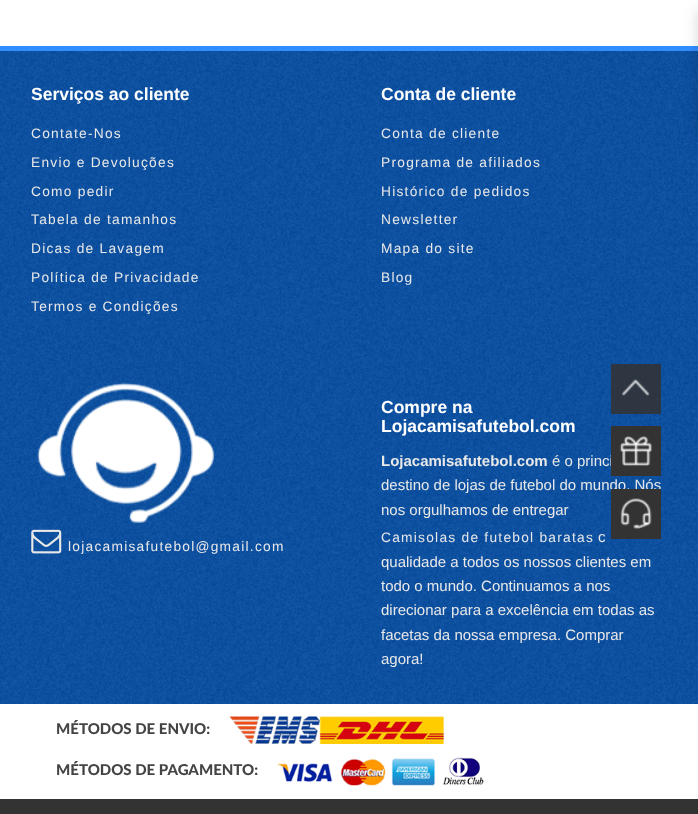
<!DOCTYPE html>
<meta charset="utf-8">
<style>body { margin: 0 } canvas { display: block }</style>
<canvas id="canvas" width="698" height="814"></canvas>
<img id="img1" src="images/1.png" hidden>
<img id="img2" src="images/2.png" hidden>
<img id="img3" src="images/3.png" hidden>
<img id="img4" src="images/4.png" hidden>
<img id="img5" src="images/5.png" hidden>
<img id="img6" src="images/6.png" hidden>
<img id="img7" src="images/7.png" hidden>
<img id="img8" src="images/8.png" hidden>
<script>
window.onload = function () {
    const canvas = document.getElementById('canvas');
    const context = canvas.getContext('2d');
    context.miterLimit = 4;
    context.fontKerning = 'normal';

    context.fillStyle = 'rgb(255, 255, 255)';
    context.fillRect(0, 0, 698, 814);
    context.fillStyle = 'rgb(7, 78, 163)';
    context.fillRect(0, 51, 698, 653);
    context.drawImage(document.getElementById('img1'), 0, 51, 698, 653);
    context.fillStyle = 'rgb(50, 142, 255)';
    context.fillRect(0, 46, 698, 5);
    context.drawImage(document.getElementById('img2'), 37, 382, 178, 141);
    context.drawImage(document.getElementById('img3'), 31, 529, 31, 25);
    context.drawImage(document.getElementById('img4'), 229, 716, 215, 28);
    context.drawImage(document.getElementById('img5'), 277, 757, 207, 29);
    context.fillStyle = 'rgba(0, 0, 0, 0.18)';
    context.filter = 'blur(7.5px)';
    context.beginPath();
    context.rect(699, 10, 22, 125);
    context.fill();
    context.filter = 'none';
    context.fillStyle = 'rgb(51, 51, 51)';
    context.fillRect(0, 799, 698, 15);
    context.fillStyle = 'rgba(51, 51, 51, 0.87)';
    context.fillRect(611, 364, 50, 50);
    context.drawImage(document.getElementById('img6'), 622, 379, 28, 17);
    context.font = 'bold 17.5px Liberation Sans';
    context.fillStyle = 'rgb(255, 255, 255)';
    context.fillText('Serviços ao cliente', 31, 100);
    context.letterSpacing = '1.25px';
    context.font = '13.75px Liberation Sans';
    context.fillStyle = 'rgb(232, 232, 232)';
    context.fillText('Contate-Nos', 31, 138);
    context.fillText('Envio e Devoluções', 31, 167);
    context.fillText('Como pedir', 31, 196);
    context.fillText('Tabela de tamanhos', 31, 224);
    context.fillText('Dicas de Lavagem', 31, 253);
    context.fillText('Política de Privacidade', 31, 282);
    context.fillText('Termos e Condições', 31, 311);
    context.letterSpacing = '0px';
    context.font = 'bold 17.5px Liberation Sans';
    context.fillStyle = 'rgb(255, 255, 255)';
    context.fillText('Conta de cliente', 381, 100);
    context.letterSpacing = '1.25px';
    context.font = '13.75px Liberation Sans';
    context.fillStyle = 'rgb(232, 232, 232)';
    context.fillText('Conta de cliente', 381, 138);
    context.fillText('Programa de afiliados', 381, 167);
    context.fillText('Histórico de pedidos', 381, 196);
    context.fillText('Newsletter', 381, 224);
    context.fillText('Mapa do site', 381, 253);
    context.fillText('Blog', 381, 282);
    context.fillText('lojacamisafutebol@gmail.com', 68, 551);
    context.letterSpacing = '0px';
    context.font = 'bold 17.5px Liberation Sans';
    context.fillStyle = 'rgb(255, 255, 255)';
    context.fillText('Compre na', 381, 413);
    context.fillText('Lojacamisafutebol.com', 381, 432);
    context.font = 'bold 15px Liberation Sans';
    context.fillStyle = 'rgb(232, 232, 232)';
    context.fillText('Lojacamisafutebol.com', 381, 466);
    context.font = '15px Liberation Sans';
    context.fillText('é o princi', 552, 466);
    context.fillText('destino de lojas de futebol do mundo. Nós', 381, 490);
    context.fillText('nos orgulhamos de entregar', 381, 515);
    context.letterSpacing = '1.25px';
    context.font = '13.75px Liberation Sans';
    context.fillText('Camisolas de futebol baratas', 381, 542);
    context.letterSpacing = '0px';
    context.font = '15px Liberation Sans';
    context.fillText('c', 598, 542);
    context.fillText('qualidade a todos os nossos clientes em', 381, 567);
    context.fillText('todo o mundo. Continuamos a nos', 381, 591);
    context.fillText('direcionar para a excelência em todas as', 381, 615);
    context.fillText('facetas da nossa empresa. Comprar', 381, 640);
    context.fillText('agora!', 381, 664);
    context.font = '900 15px Lato';
    context.fillStyle = 'rgb(68, 68, 68)';
    context.fillText('MÉTODOS DE ENVIO:', 56, 734);
    context.fillText('MÉTODOS DE PAGAMENTO:', 56, 775);
    context.fillStyle = 'rgb(51, 51, 51)';
    context.fillRect(611, 426, 50, 50);
    context.drawImage(document.getElementById('img7'), 619, 436, 34, 30);
    context.fillRect(611, 489, 50, 50);
    context.drawImage(document.getElementById('img8'), 620, 498, 32, 32);
};
</script>
